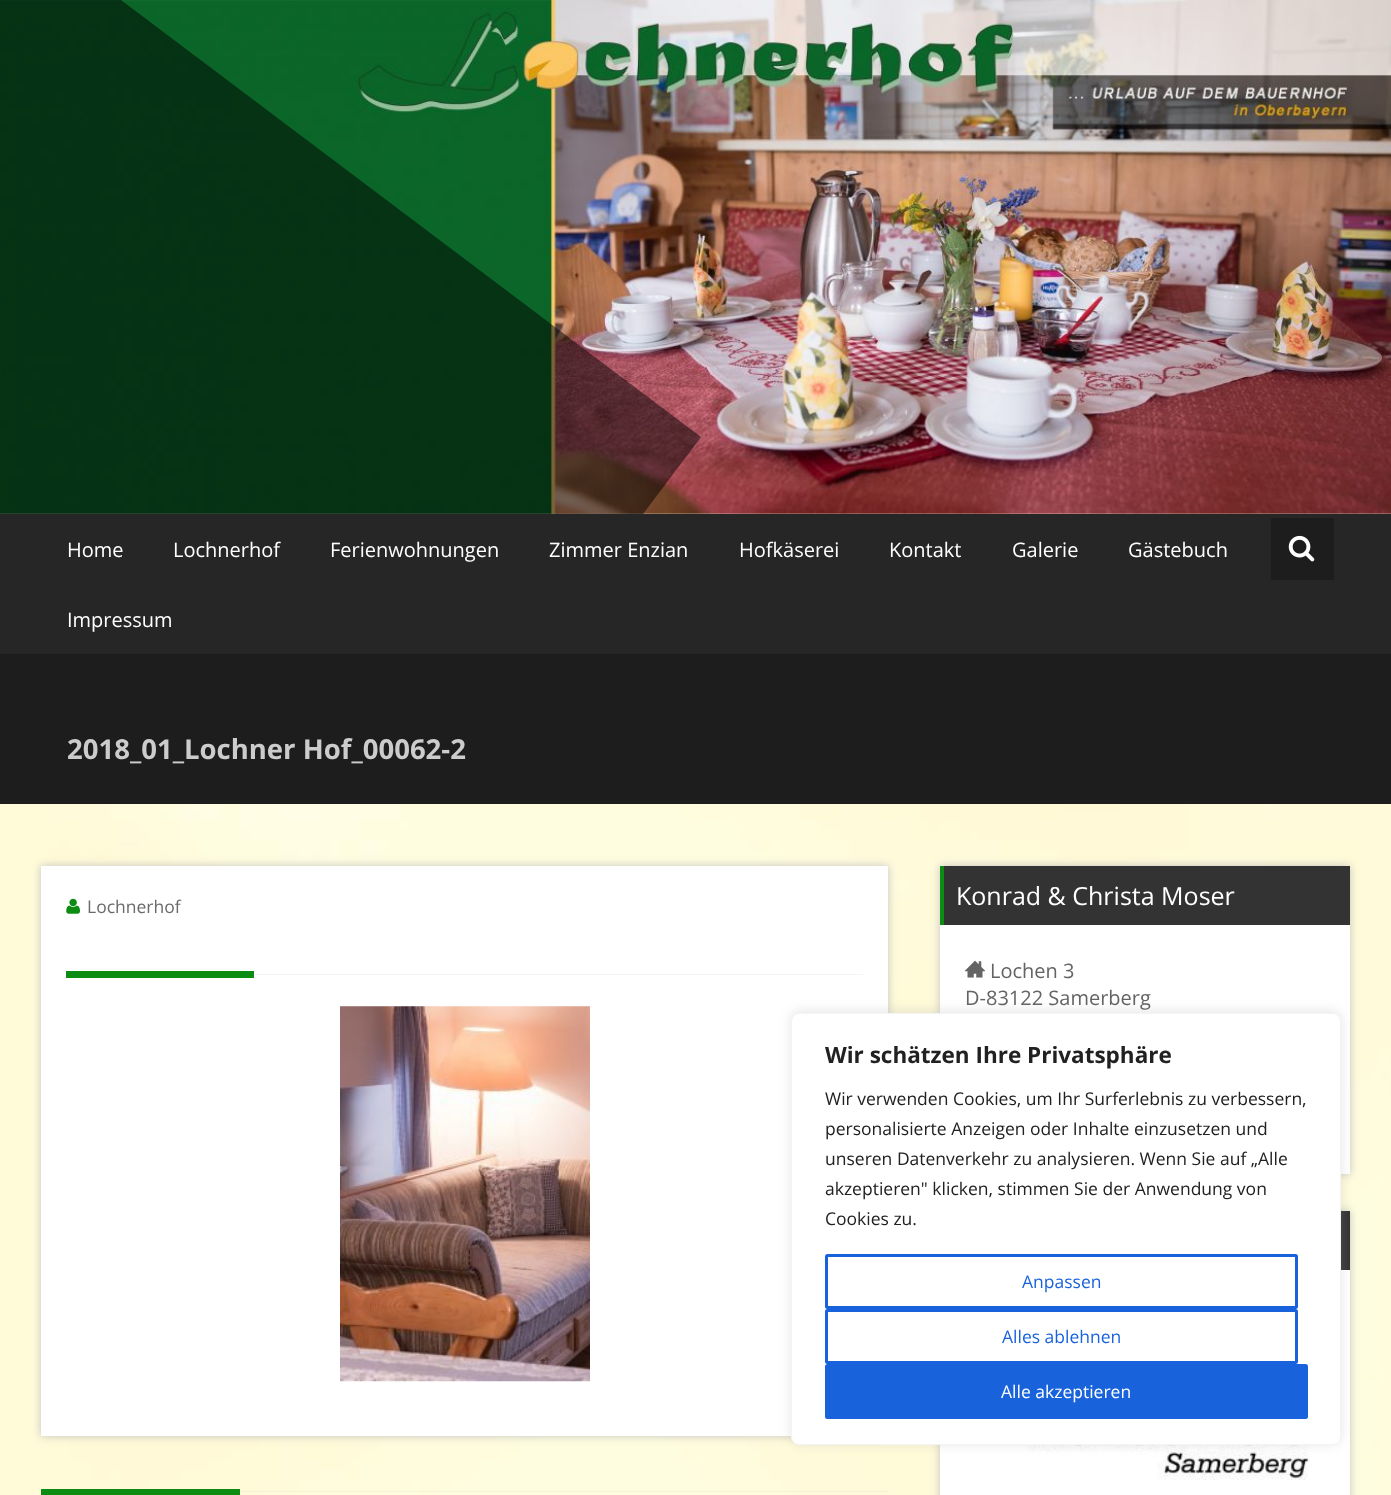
<!DOCTYPE html>
<meta charset="utf-8">
<style>body { margin: 0 } canvas { display: block }</style>
<canvas id="canvas" width="1391" height="1495"></canvas>
<img id="img1" src="images/1.png" hidden>
<img id="img2" src="images/2.png" hidden>
<img id="img3" src="images/3.png" hidden>
<img id="img4" src="images/4.png" hidden>
<img id="img5" src="images/5.png" hidden>
<img id="img6" src="images/6.png" hidden>
<img id="img7" src="images/7.png" hidden>
<script>
window.onload = function () {
    const canvas = document.getElementById('canvas');
    const context = canvas.getContext('2d');
    context.miterLimit = 4;
    context.fontKerning = 'normal';

    context.fillStyle = 'rgb(255, 255, 255)';
    context.fillRect(0, 0, 1391, 1495);
    context.drawImage(document.getElementById('img1'), 0, 513, 1391, 982);
    context.drawImage(document.getElementById('img2'), 0, 0, 1391, 514);
    context.save();
    context.beginPath();
    context.rect(0, 0, 1391, 514);
    context.clip();
    context.fillStyle = 'rgba(0, 0, 0, 0.5)';
    context.beginPath();
    context.moveTo(-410, -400);
    context.lineTo(701, 437);
    context.lineTo(-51, 1436);
    context.lineTo(-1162, 598);
    context.closePath();
    context.fill();
    context.restore();
    context.fillStyle = 'rgb(38, 38, 38)';
    context.fillRect(0, 514, 1391, 140);
    context.fillStyle = 'rgb(29, 29, 29)';
    context.fillRect(1271, 518, 63, 62);
    context.drawImage(document.getElementById('img3'), 1288, 535, 27, 27);
    context.fillRect(0, 654, 1391, 150);
    context.fillStyle = 'rgb(194, 194, 194)';
    context.filter = 'blur(4.5px)';
    context.beginPath();
    context.rect(41, 866, 847, 570);
    context.fill();
    context.filter = 'none';
    context.fillStyle = 'rgb(255, 255, 255)';
    context.fillRect(41, 866, 847, 570);
    context.drawImage(document.getElementById('img4'), 66, 898, 14, 16);
    context.fillStyle = 'rgb(12, 140, 19)';
    context.fillRect(66, 971, 188, 7);
    context.fillStyle = 'rgb(244, 244, 244)';
    context.fillRect(254, 974, 609, 1);
    context.drawImage(document.getElementById('img5'), 340, 1006, 250, 376);
    context.fillStyle = 'rgb(12, 140, 19)';
    context.fillRect(41, 1489, 199, 6);
    context.fillStyle = 'rgba(204, 204, 204, 0.22)';
    context.fillRect(240, 1491, 648, 1);
    context.fillStyle = 'rgb(194, 194, 194)';
    context.filter = 'blur(4.5px)';
    context.beginPath();
    context.rect(940, 866, 410, 308);
    context.fill();
    context.filter = 'none';
    context.fillStyle = 'rgb(255, 255, 255)';
    context.fillRect(940, 925, 410, 249);
    context.fillStyle = 'rgb(51, 51, 51)';
    context.fillRect(944, 866, 406, 59);
    context.fillStyle = 'rgb(12, 140, 19)';
    context.fillRect(940, 866, 4, 59);
    context.drawImage(document.getElementById('img6'), 965, 960, 20, 18);
    context.fillStyle = 'rgb(194, 194, 194)';
    context.filter = 'blur(4.5px)';
    context.beginPath();
    context.rect(940, 1211, 410, 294);
    context.fill();
    context.filter = 'none';
    context.fillStyle = 'rgb(255, 255, 255)';
    context.fillRect(940, 1270, 410, 225);
    context.fillStyle = 'rgb(51, 51, 51)';
    context.fillRect(1341, 1211, 9, 59);
    context.drawImage(document.getElementById('img7'), 976, 1445, 334, 35);
    context.fillStyle = 'rgba(172, 171, 171, 0.3)';
    context.filter = 'blur(6px)';
    context.beginPath();
    context.roundRect(791, 1011, 550, 433, 8);
    context.fill();
    context.filter = 'none';
    context.fillStyle = 'rgb(255, 255, 255)';
    context.beginPath();
    context.roundRect(791.5, 1013.5, 549, 431, 7.5);
    context.fill();
    context.strokeStyle = 'rgb(244, 244, 244)';
    context.stroke();
    context.beginPath();
    context.roundRect(826.5, 1255.5, 470, 52, 1);
    context.strokeStyle = 'rgb(24, 99, 220)';
    context.lineWidth = 3;
    context.stroke();
    context.beginPath();
    context.roundRect(826.5, 1310.5, 470, 52, 1);
    context.stroke();
    context.fillStyle = 'rgb(24, 99, 220)';
    context.beginPath();
    context.roundRect(826.5, 1365.5, 480, 52, 1);
    context.fill();
    context.stroke();
    context.font = '20px Open Sans';
    context.fillStyle = 'rgb(255, 255, 255)';
    context.fillText('Home', 67, 557);
    context.fillText('Lochnerhof', 173, 557);
    context.fillText('Ferienwohnungen', 330, 557);
    context.fillText('Zimmer Enzian', 549, 557);
    context.fillText('Hofkäserei', 739, 557);
    context.fillText('Kontakt', 889, 557);
    context.fillText('Galerie', 1012, 557);
    context.fillText('Gästebuch', 1128, 557);
    context.fillText('Impressum', 67, 627);
    context.font = 'bold 27.5px Open Sans';
    context.fillStyle = 'rgb(204, 204, 204)';
    context.fillText('2018_01_Lochner Hof_00062-2', 67, 759);
    context.font = '17.5px Open Sans';
    context.fillStyle = 'rgb(106, 106, 106)';
    context.fillText('Lochnerhof', 87, 913);
    context.font = '25px Open Sans';
    context.fillStyle = 'rgb(255, 255, 255)';
    context.fillText('Konrad & Christa Moser', 956, 905);
    context.font = '20px Open Sans';
    context.fillStyle = 'rgb(100, 100, 100)';
    context.fillText('Lochen 3', 990, 978);
    context.fillText('D-83122 Samerberg', 965, 1005);
    context.font = 'bold 22.5px Open Sans';
    context.fillStyle = 'rgb(33, 33, 33)';
    context.fillText('Wir schätzen Ihre Privatsphäre', 825, 1063);
    context.font = '17.5px Open Sans';
    context.fillText('Wir verwenden Cookies, um Ihr Surferlebnis zu verbessern,', 825, 1105);
    context.fillText('personalisierte Anzeigen oder Inhalte einzusetzen und', 825, 1135);
    context.fillText('unseren Datenverkehr zu analysieren. Wenn Sie auf „Alle', 825, 1165);
    context.fillText('akzeptieren" klicken, stimmen Sie der Anwendung von', 825, 1195);
    context.fillText('Cookies zu.', 825, 1225);
    context.fillStyle = 'rgb(24, 99, 220)';
    context.fillText('Anpassen', 1022, 1288);
    context.fillText('Alles ablehnen', 1002, 1343);
    context.fillStyle = 'rgb(255, 255, 255)';
    context.fillText('Alle akzeptieren', 1001, 1398);
};
</script>
